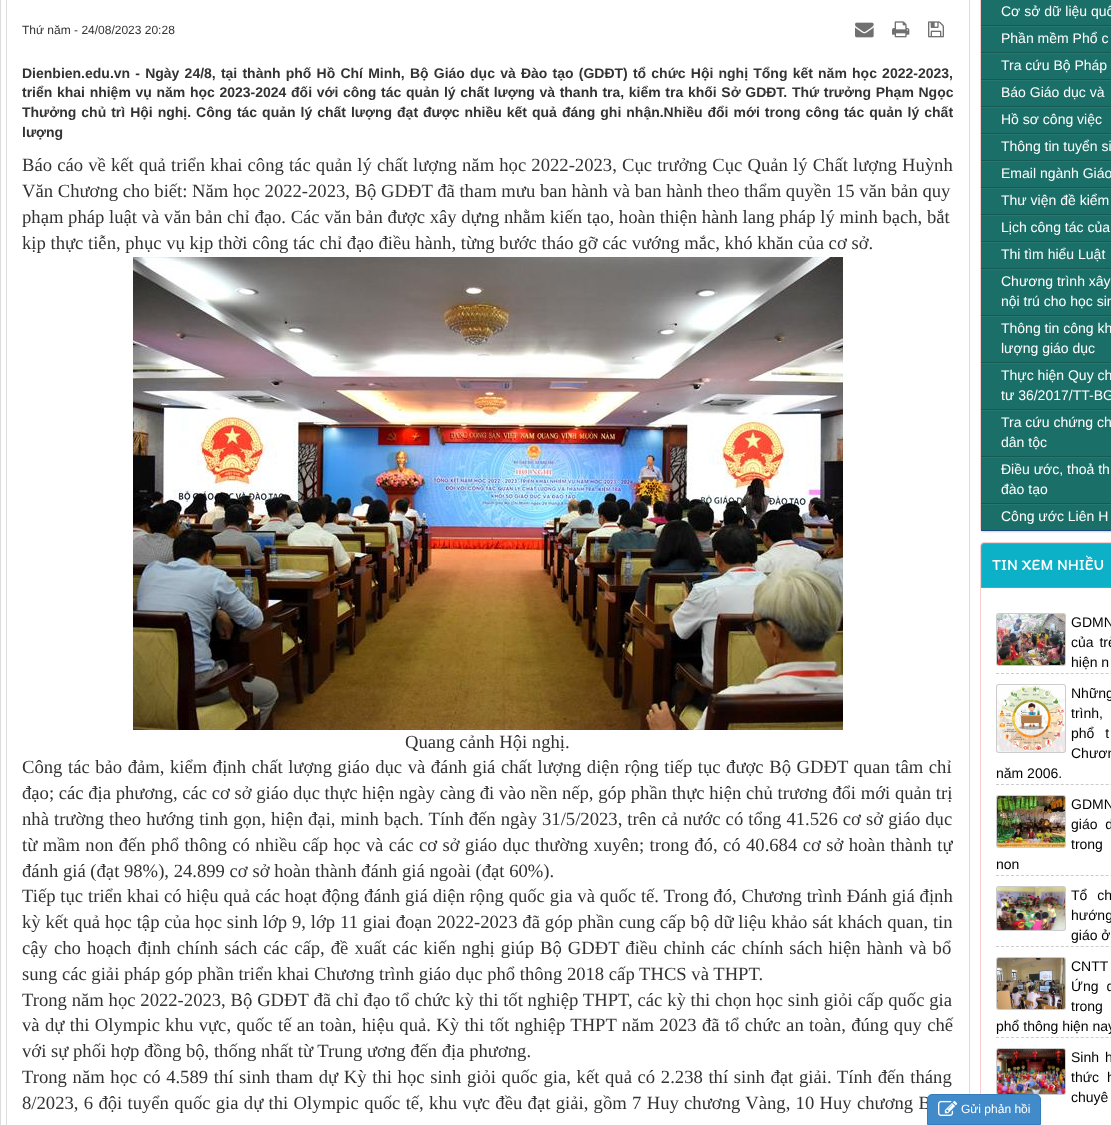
<!DOCTYPE html>
<meta charset="utf-8">
<style>body { margin: 0 } canvas { display: block }</style>
<canvas id="canvas" width="1111" height="1125"></canvas>
<img id="img1" src="images/1.png" hidden>
<img id="img2" src="images/2.png" hidden>
<img id="img3" src="images/3.png" hidden>
<img id="img4" src="images/4.png" hidden>
<img id="img5" src="images/5.png" hidden>
<img id="img6" src="images/6.png" hidden>
<img id="img7" src="images/7.png" hidden>
<img id="img8" src="images/8.png" hidden>
<img id="img9" src="images/9.png" hidden>
<img id="img10" src="images/10.png" hidden>
<img id="img11" src="images/11.png" hidden>
<script>
window.onload = function () {
    const canvas = document.getElementById('canvas');
    const context = canvas.getContext('2d');
    context.miterLimit = 4;
    context.fontKerning = 'normal';

    context.fillStyle = 'rgb(255, 255, 255)';
    context.fillRect(0, 0, 1111, 1125);
    context.fillStyle = 'rgb(220, 220, 220)';
    context.fillRect(0, 0, 1, 1125);
    context.strokeStyle = 'rgb(221, 221, 221)';
    context.strokeRect(6.5, -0.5, 963, 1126);
    context.drawImage(document.getElementById('img1'), 855, 22, 19, 16);
    context.drawImage(document.getElementById('img2'), 892, 21, 18, 17);
    context.drawImage(document.getElementById('img3'), 928, 21, 16, 17);
    context.drawImage(document.getElementById('img4'), 133, 257, 710, 473);
    context.fillStyle = 'rgba(0, 0, 0, 0.05)';
    context.filter = 'blur(0.5px)';
    context.beginPath();
    context.roundRect(980, -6, 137, 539, 4);
    context.fill();
    context.filter = 'none';
    context.beginPath();
    context.roundRect(980.5, -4.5, 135, 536, 3.5);
    context.strokeStyle = 'rgb(248, 205, 205)';
    context.stroke();
    context.fillStyle = 'rgb(26, 112, 104)';
    context.fillRect(981, 0, 130, 530);
    context.fillStyle = 'rgb(26, 76, 128)';
    context.fillRect(981, 530, 130, 1);
    context.fillStyle = 'rgb(37, 119, 112)';
    context.fillRect(981, 26, 130, 1);
    context.fillStyle = 'rgb(21, 90, 83)';
    context.fillRect(981, 25, 130, 1);
    context.fillStyle = 'rgb(37, 119, 112)';
    context.fillRect(981, 53, 130, 1);
    context.fillStyle = 'rgb(21, 90, 83)';
    context.fillRect(981, 52, 130, 1);
    context.fillStyle = 'rgb(37, 119, 112)';
    context.fillRect(981, 80, 130, 1);
    context.fillStyle = 'rgb(21, 90, 83)';
    context.fillRect(981, 79, 130, 1);
    context.fillStyle = 'rgb(37, 119, 112)';
    context.fillRect(981, 107, 130, 1);
    context.fillStyle = 'rgb(21, 90, 83)';
    context.fillRect(981, 106, 130, 1);
    context.fillStyle = 'rgb(37, 119, 112)';
    context.fillRect(981, 134, 130, 1);
    context.fillStyle = 'rgb(21, 90, 83)';
    context.fillRect(981, 133, 130, 1);
    context.fillStyle = 'rgb(37, 119, 112)';
    context.fillRect(981, 161, 130, 1);
    context.fillStyle = 'rgb(21, 90, 83)';
    context.fillRect(981, 160, 130, 1);
    context.fillStyle = 'rgb(37, 119, 112)';
    context.fillRect(981, 188, 130, 1);
    context.fillStyle = 'rgb(21, 90, 83)';
    context.fillRect(981, 187, 130, 1);
    context.fillStyle = 'rgb(37, 119, 112)';
    context.fillRect(981, 215, 130, 1);
    context.fillStyle = 'rgb(21, 90, 83)';
    context.fillRect(981, 214, 130, 1);
    context.fillStyle = 'rgb(37, 119, 112)';
    context.fillRect(981, 242, 130, 1);
    context.fillStyle = 'rgb(21, 90, 83)';
    context.fillRect(981, 241, 130, 1);
    context.fillStyle = 'rgb(37, 119, 112)';
    context.fillRect(981, 269, 130, 1);
    context.fillStyle = 'rgb(21, 90, 83)';
    context.fillRect(981, 268, 130, 1);
    context.fillStyle = 'rgb(37, 119, 112)';
    context.fillRect(981, 316, 130, 1);
    context.fillStyle = 'rgb(21, 90, 83)';
    context.fillRect(981, 315, 130, 1);
    context.fillStyle = 'rgb(37, 119, 112)';
    context.fillRect(981, 363, 130, 1);
    context.fillStyle = 'rgb(21, 90, 83)';
    context.fillRect(981, 362, 130, 1);
    context.fillStyle = 'rgb(37, 119, 112)';
    context.fillRect(981, 410, 130, 1);
    context.fillStyle = 'rgb(21, 90, 83)';
    context.fillRect(981, 409, 130, 1);
    context.fillStyle = 'rgb(37, 119, 112)';
    context.fillRect(981, 457, 130, 1);
    context.fillStyle = 'rgb(21, 90, 83)';
    context.fillRect(981, 456, 130, 1);
    context.fillStyle = 'rgb(37, 119, 112)';
    context.fillRect(981, 504, 130, 1);
    context.fillStyle = 'rgb(21, 90, 83)';
    context.fillRect(981, 503, 130, 1);
    context.beginPath();
    context.roundRect(980.5, 542.5, 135, 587, 3.5);
    context.stroke();
    context.fillStyle = 'rgb(12, 177, 199)';
    context.beginPath();
    context.moveTo(984, 543);
    context.lineTo(1111, 543);
    context.bezierCurveTo(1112.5, 543, 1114, 544.5, 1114, 546);
    context.lineTo(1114, 588);
    context.lineTo(981, 588);
    context.lineTo(981, 546);
    context.bezierCurveTo(981, 544.5, 982.5, 543, 984, 543);
    context.closePath();
    context.fill();
    context.beginPath();
    context.moveTo(984, 543.5);
    context.lineTo(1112, 543.5);
    context.bezierCurveTo(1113.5, 543.5, 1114.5, 544.5, 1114.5, 546);
    context.lineTo(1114.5, 587.5);
    context.lineTo(981.5, 587.5);
    context.lineTo(981.5, 546);
    context.bezierCurveTo(981.5, 544.5, 982.5, 543.5, 984, 543.5);
    context.closePath();
    context.strokeStyle = 'rgba(237, 134, 134, 0.41)';
    context.stroke();
    context.beginPath();
    context.moveTo(996, 673.5);
    context.lineTo(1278, 673.5);
    context.strokeStyle = 'rgb(204, 204, 204)';
    context.setLineDash([3, 1.98]);
    context.stroke();
    context.fillStyle = 'rgb(204, 204, 204)';
    context.beginPath();
    context.roundRect(996, 613, 70, 53, 3);
    context.fill();
    context.drawImage(document.getElementById('img5'), 997, 614, 68, 51);
    context.beginPath();
    context.moveTo(996, 784.5);
    context.lineTo(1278, 784.5);
    context.stroke();
    context.beginPath();
    context.roundRect(996, 684, 70, 69, 3);
    context.fill();
    context.drawImage(document.getElementById('img6'), 997, 685, 68, 67);
    context.beginPath();
    context.moveTo(996, 875.5);
    context.lineTo(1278, 875.5);
    context.stroke();
    context.beginPath();
    context.roundRect(996, 795, 70, 53, 3);
    context.fill();
    context.drawImage(document.getElementById('img7'), 997, 796, 68, 51);
    context.beginPath();
    context.moveTo(996, 946.5);
    context.lineTo(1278, 946.5);
    context.stroke();
    context.beginPath();
    context.roundRect(996, 886, 70, 45, 3);
    context.fill();
    context.drawImage(document.getElementById('img8'), 997, 887, 68, 43);
    context.beginPath();
    context.moveTo(996, 1037.5);
    context.lineTo(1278, 1037.5);
    context.stroke();
    context.beginPath();
    context.roundRect(996, 957, 70, 53, 3);
    context.fill();
    context.drawImage(document.getElementById('img9'), 997, 958, 68, 51);
    context.beginPath();
    context.roundRect(996, 1048, 70, 47, 3);
    context.fill();
    context.drawImage(document.getElementById('img10'), 997, 1049, 68, 45);
    context.font = '12px Liberation Sans';
    context.fillStyle = 'rgb(51, 51, 51)';
    context.fillText('Thứ năm - 24/08/2023 20:28', 22, 34);
    context.wordSpacing = '1.3px';
    context.font = 'bold 14px Liberation Sans';
    context.fillText('Dienbien.edu.vn - Ngày 24/8, tại thành phố Hồ Chí Minh, Bộ Giáo dục và Đào tạo (GDĐT) tổ chức Hội nghị Tổng kết năm học 2022-2023,', 22, 78);
    context.wordSpacing = '0.75px';
    context.fillText('triển khai nhiệm vụ năm học 2023-2024 đối với công tác quản lý chất lượng và thanh tra, kiểm tra khối Sở GDĐT. Thứ trưởng Phạm Ngọc', 22, 97);
    context.wordSpacing = '1.1px';
    context.fillText('Thưởng chủ trì Hội nghị. Công tác quản lý chất lượng đạt được nhiều kết quả đáng ghi nhận.Nhiều đổi mới trong công tác quản lý chất', 22, 117);
    context.wordSpacing = '0px';
    context.fillText('lượng', 22, 137);
    context.wordSpacing = '0.5px';
    context.font = '18.65px Liberation Serif';
    context.fillText('Báo cáo về kết quả triển khai công tác quản lý chất lượng năm học 2022-2023, Cục trưởng Cục Quản lý Chất lượng Huỳnh', 22, 171);
    context.wordSpacing = '0px';
    context.fillText('Văn Chương cho biết: Năm học 2022-2023, Bộ GDĐT đã tham mưu ban hành và ban hành theo thẩm quyền 15 văn bản quy', 22, 197);
    context.fillText('phạm pháp luật và văn bản chỉ đạo. Các văn bản được xây dựng nhằm kiến tạo, hoàn thiện hành lang pháp lý minh bạch, bắt', 22, 223);
    context.fillText('kịp thực tiễn, phục vụ kịp thời công tác chỉ đạo điều hành, từng bước tháo gỡ các vướng mắc, khó khăn của cơ sở.', 22, 249);
    context.fillText('Quang cảnh Hội nghị.', 405, 748);
    context.wordSpacing = '0.9px';
    context.fillText('Công tác bảo đảm, kiểm định chất lượng giáo dục và đánh giá chất lượng diện rộng tiếp tục được Bộ GDĐT quan tâm chỉ', 22, 773);
    context.wordSpacing = '0px';
    context.fillText('đạo; các địa phương, các cơ sở giáo dục thực hiện ngày càng đi vào nền nếp, góp phần thực hiện chủ trương đổi mới quản trị', 22, 799);
    context.wordSpacing = '0.4px';
    context.fillText('nhà trường theo hướng tinh gọn, hiện đại, minh bạch. Tính đến ngày 31/5/2023, trên cả nước có tổng 41.526 cơ sở giáo dục', 22, 825);
    context.wordSpacing = '0.75px';
    context.fillText('từ mầm non đến phổ thông có nhiều cấp học và các cơ sở giáo dục thường xuyên; trong đó, có 40.684 cơ sở hoàn thành tự', 22, 851);
    context.wordSpacing = '0px';
    context.fillText('đánh giá (đạt 98%), 24.899 cơ sở hoàn thành đánh giá ngoài (đạt 60%).', 22, 877);
    context.wordSpacing = '0.2px';
    context.fillText('Tiếp tục triển khai có hiệu quả các hoạt động đánh giá diện rộng quốc gia và quốc tế. Trong đó, Chương trình Đánh giá định', 22, 902);
    context.fillText('kỳ kết quả học tập của học sinh lớp 9, lớp 11 giai đoạn 2022-2023 đã góp phần cung cấp bộ dữ liệu khảo sát khách quan, tin', 22, 928);
    context.wordSpacing = '1.4px';
    context.fillText('cậy cho hoạch định chính sách các cấp, đề xuất các kiến nghị giúp Bộ GDĐT điều chỉnh các chính sách hiện hành và bổ', 22, 954);
    context.wordSpacing = '0px';
    context.fillText('sung các giải pháp góp phần triển khai Chương trình giáo dục phổ thông 2018 cấp THCS và THPT.', 22, 980);
    context.wordSpacing = '0.15px';
    context.fillText('Trong năm học 2022-2023, Bộ GDĐT đã chỉ đạo tổ chức kỳ thi tốt nghiệp THPT, các kỳ thi chọn học sinh giỏi cấp quốc gia', 22, 1006);
    context.wordSpacing = '0.7px';
    context.fillText('và dự thi Olympic khu vực, quốc tế an toàn, hiệu quả. Kỳ thi tốt nghiệp THPT năm 2023 đã tổ chức an toàn, đúng quy chế', 22, 1031);
    context.wordSpacing = '0px';
    context.fillText('với sự phối hợp đồng bộ, thống nhất từ Trung ương đến địa phương.', 22, 1057);
    context.wordSpacing = '1px';
    context.fillText('Trong năm học có 4.589 thí sinh tham dự Kỳ thi học sinh giỏi quốc gia, kết quả có 2.238 thí sinh đạt giải. Tính đến tháng', 22, 1083);
    context.wordSpacing = '0.65px';
    context.fillText('8/2023, 6 đội tuyển quốc gia dự thi Olympic quốc tế, khu vực đều đạt giải, gồm 7 Huy chương Vàng, 10 Huy chương B', 22, 1109);
    context.wordSpacing = '0px';
    context.font = '14px Liberation Sans';
    context.fillStyle = 'rgb(255, 255, 255)';
    context.fillText('Cơ sở dữ liệu quố', 1001, 16);
    context.fillText('Phần mềm Phổ c', 1001, 43);
    context.fillText('Tra cứu Bộ Pháp', 1001, 70);
    context.fillText('Báo Giáo dục và', 1001, 97);
    context.fillText('Hồ sơ công việc', 1001, 124);
    context.fillText('Thông tin tuyển si', 1001, 151);
    context.fillText('Email ngành Giáo', 1001, 178);
    context.fillText('Thư viện đề kiểm', 1001, 205);
    context.fillText('Lịch công tác của', 1001, 232);
    context.fillText('Thi tìm hiểu Luật', 1001, 259);
    context.fillText('Chương trình xây', 1001, 286);
    context.fillText('nội trú cho học sin', 1001, 306);
    context.fillText('Thông tin công kh', 1001, 333);
    context.fillText('lượng giáo dục', 1001, 353);
    context.fillText('Thực hiện Quy ch', 1001, 380);
    context.fillText('tư 36/2017/TT-BG', 1001, 400);
    context.fillText('Tra cứu chứng ch', 1001, 427);
    context.fillText('dân tộc', 1001, 447);
    context.fillText('Điều ước, thoả th', 1001, 474);
    context.fillText('đào tạo', 1001, 494);
    context.fillText('Công ước Liên H', 1001, 521);
    context.font = '16px Itim';
    context.fillText('TIN XEM NHIỀU', 992, 570);
    context.wordSpacing = '2px';
    context.font = '14px Liberation Sans';
    context.fillStyle = 'rgb(0, 0, 0)';
    context.fillText('GDMN', 1071, 627);
    context.fillText('của trẻ', 1071, 647);
    context.wordSpacing = '0px';
    context.fillText('hiện n', 1071, 667);
    context.wordSpacing = '3px';
    context.fillText('Những', 1071, 698);
    context.wordSpacing = '4px';
    context.fillText('trình,', 1071, 718);
    context.wordSpacing = '7px';
    context.fillText('phổ t', 1071, 738);
    context.wordSpacing = '0px';
    context.fillText('Chươn', 1071, 758);
    context.fillText('năm 2006.', 996, 778);
    context.fillText('GDMN', 1071, 809);
    context.wordSpacing = '4px';
    context.fillText('giáo d', 1071, 829);
    context.wordSpacing = '3px';
    context.fillText('trong', 1071, 849);
    context.wordSpacing = '0px';
    context.fillText('non', 996, 869);
    context.wordSpacing = '6px';
    context.fillText('Tổ ch', 1071, 900);
    context.wordSpacing = '3px';
    context.fillText('hướng', 1071, 920);
    context.wordSpacing = '0px';
    context.fillText('giáo ở', 1071, 940);
    context.wordSpacing = '4px';
    context.fillText('CNTT', 1071, 971);
    context.fillText('Ứng d', 1071, 991);
    context.wordSpacing = '2px';
    context.fillText('trong', 1071, 1011);
    context.wordSpacing = '0px';
    context.fillText('phổ thông hiện nay', 996, 1031);
    context.wordSpacing = '2px';
    context.fillText('Sinh h', 1071, 1062);
    context.wordSpacing = '4px';
    context.fillText('thức h', 1071, 1082);
    context.wordSpacing = '2px';
    context.fillText('chuyê', 1071, 1102);
    context.fillStyle = 'rgb(66, 139, 202)';
    context.beginPath();
    context.roundRect(927.5, 1094.5, 113, 30, [4.5, 4.5, 0, 0]);
    context.fill();
    context.strokeStyle = 'rgb(53, 126, 189)';
    context.setLineDash([]);
    context.stroke();
    context.drawImage(document.getElementById('img11'), 938, 1100, 20, 16);
    context.wordSpacing = '0px';
    context.font = '12px Liberation Sans';
    context.fillStyle = 'rgb(255, 255, 255)';
    context.fillText('Gửi phản hồi', 961, 1113);
};
</script>
